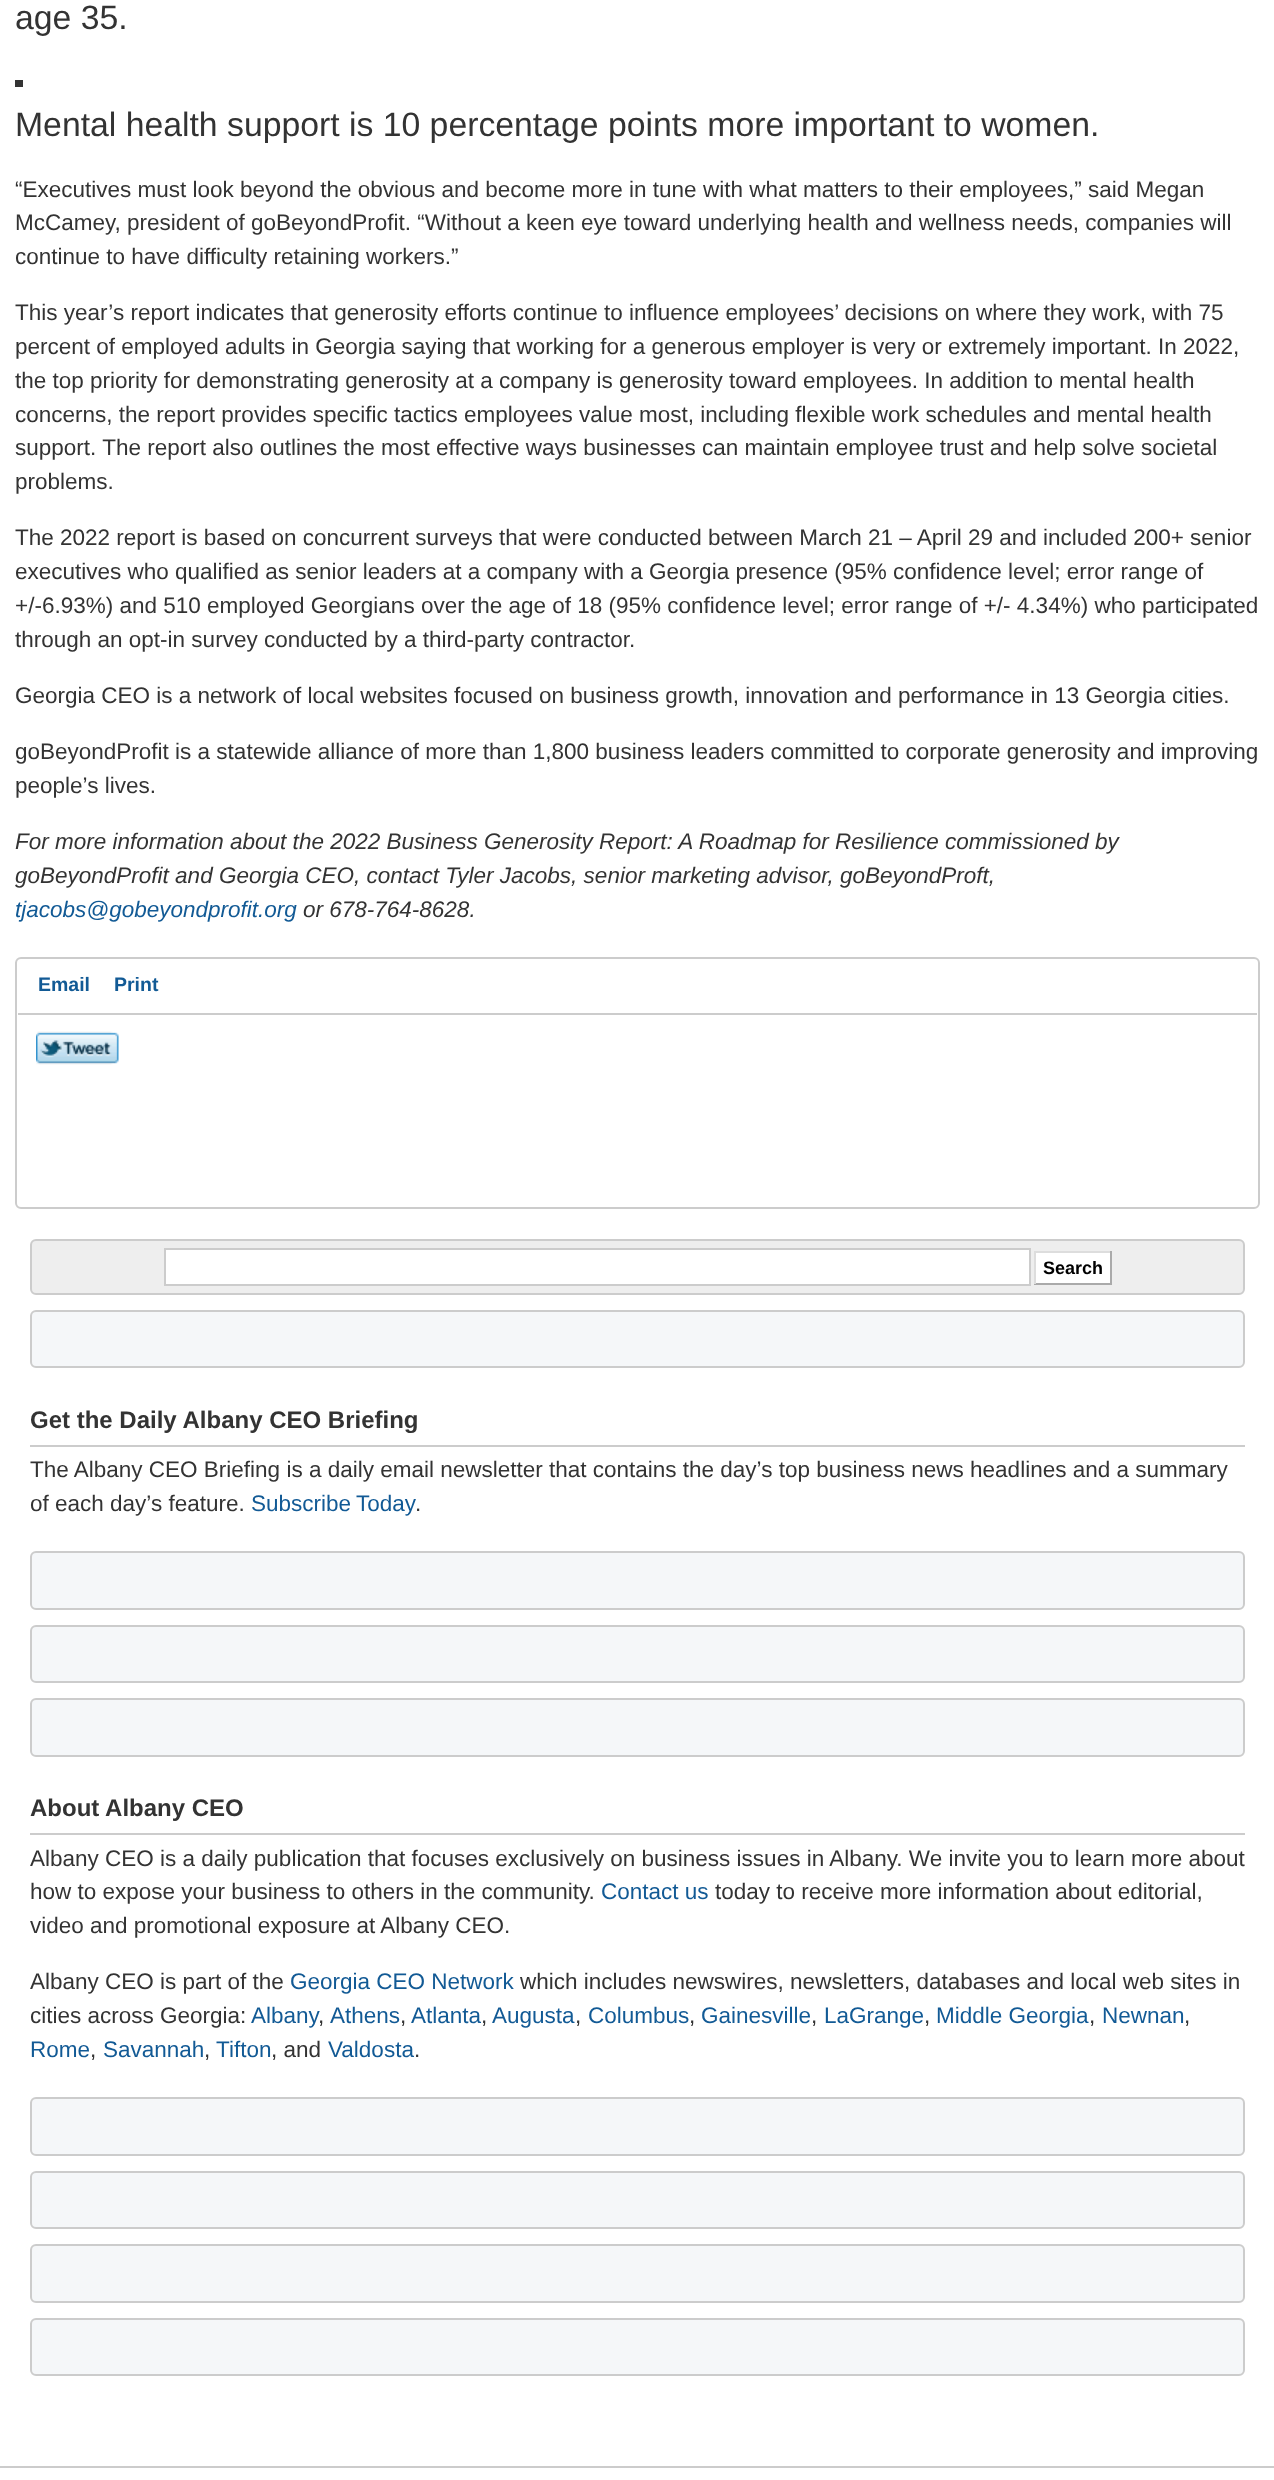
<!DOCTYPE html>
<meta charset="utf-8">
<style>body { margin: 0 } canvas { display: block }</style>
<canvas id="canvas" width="1274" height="2480"></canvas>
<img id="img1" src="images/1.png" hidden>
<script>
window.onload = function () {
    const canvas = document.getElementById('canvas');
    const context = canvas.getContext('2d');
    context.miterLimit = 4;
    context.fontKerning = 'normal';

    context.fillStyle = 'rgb(255, 255, 255)';
    context.fillRect(0, 0, 1274, 2480);
    context.fillStyle = 'rgb(51, 51, 51)';
    context.fillRect(15, 80, 8, 7);
    context.beginPath();
    context.roundRect(16, 958, 1243, 250, 5);
    context.strokeStyle = 'rgb(204, 204, 204)';
    context.lineWidth = 2;
    context.stroke();
    context.fillStyle = 'rgb(204, 204, 204)';
    context.fillRect(18, 1013, 1239, 2);
    context.drawImage(document.getElementById('img1'), 36, 1031, 83, 34);
    context.fillStyle = 'rgb(238, 238, 238)';
    context.beginPath();
    context.roundRect(31, 1240, 1213, 54, 5);
    context.fill();
    context.stroke();
    context.fillStyle = 'rgb(255, 255, 255)';
    context.beginPath();
    context.rect(165, 1249, 865, 36);
    context.fill();
    context.stroke();
    context.fillRect(1036, 1253, 74, 30);
    context.fillStyle = 'rgb(221, 221, 221)';
    context.fillRect(1034, 1251, 78, 2);
    context.fillStyle = 'rgb(170, 170, 170)';
    context.fillRect(1110, 1251, 2, 33);
    context.fillRect(1034, 1283, 78, 2);
    context.fillStyle = 'rgb(221, 221, 221)';
    context.fillRect(1034, 1251, 2, 33);
    context.fillStyle = 'rgb(245, 247, 249)';
    context.beginPath();
    context.roundRect(31, 1311, 1213, 56, 5);
    context.fill();
    context.stroke();
    context.fillStyle = 'rgb(204, 204, 204)';
    context.fillRect(30, 1445, 1215, 2);
    context.fillStyle = 'rgb(245, 247, 249)';
    context.beginPath();
    context.roundRect(31, 1552, 1213, 57, 5);
    context.fill();
    context.stroke();
    context.beginPath();
    context.roundRect(31, 1626, 1213, 56, 5);
    context.fill();
    context.stroke();
    context.beginPath();
    context.roundRect(31, 1699, 1213, 57, 5);
    context.fill();
    context.stroke();
    context.fillStyle = 'rgb(204, 204, 204)';
    context.fillRect(30, 1833, 1215, 2);
    context.fillStyle = 'rgb(245, 247, 249)';
    context.beginPath();
    context.roundRect(31, 2098, 1213, 57, 5);
    context.fill();
    context.stroke();
    context.beginPath();
    context.roundRect(31, 2172, 1213, 56, 5);
    context.fill();
    context.stroke();
    context.beginPath();
    context.roundRect(31, 2245, 1213, 57, 5);
    context.fill();
    context.stroke();
    context.beginPath();
    context.roundRect(31, 2319, 1213, 56, 5);
    context.fill();
    context.stroke();
    context.fillStyle = 'rgb(204, 204, 204)';
    context.fillRect(0, 2466, 1274, 2);
    context.font = '33.75px Liberation Sans';
    context.fillStyle = 'rgb(51, 51, 51)';
    context.fillText('age 35.', 15, 29);
    context.fillText('Mental health support is 10 percentage points more important to women.', 15, 136);
    context.font = '22.5px Liberation Sans';
    context.fillText('“Executives must look beyond the obvious and become more in tune with what matters to their employees,” said Megan', 15, 197);
    context.fillText('McCamey, president of goBeyondProfit. “Without a keen eye toward underlying health and wellness needs, companies will', 15, 230);
    context.fillText('continue to have difficulty retaining workers.”', 15, 264);
    context.fillText('This year’s report indicates that generosity efforts continue to influence employees’ decisions on where they work, with 75', 15, 320);
    context.fillText('percent of employed adults in Georgia saying that working for a generous employer is very or extremely important. In 2022,', 15, 354);
    context.fillText('the top priority for demonstrating generosity at a company is generosity toward employees. In addition to mental health', 15, 388);
    context.fillText('concerns, the report provides specific tactics employees value most, including flexible work schedules and mental health', 15, 422);
    context.fillText('support. The report also outlines the most effective ways businesses can maintain employee trust and help solve societal', 15, 455);
    context.fillText('problems.', 15, 489);
    context.fillText('The 2022 report is based on concurrent surveys that were conducted between March 21 – April 29 and included 200+ senior', 15, 545);
    context.fillText('executives who qualified as senior leaders at a company with a Georgia presence (95% confidence level; error range of', 15, 579);
    context.fillText('+/-6.93%) and 510 employed Georgians over the age of 18 (95% confidence level; error range of +/- 4.34%) who participated', 15, 613);
    context.fillText('through an opt-in survey conducted by a third-party contractor.', 15, 647);
    context.fillText('Georgia CEO is a network of local websites focused on business growth, innovation and performance in 13 Georgia cities.', 15, 703);
    context.fillText('goBeyondProfit is a statewide alliance of more than 1,800 business leaders committed to corporate generosity and improving', 15, 759);
    context.fillText('people’s lives.', 15, 793);
    context.font = 'italic 22.5px Liberation Sans';
    context.fillText('For more information about the 2022 Business Generosity Report: A Roadmap for Resilience commissioned by', 15, 849);
    context.fillText('goBeyondProfit and Georgia CEO, contact Tyler Jacobs, senior marketing advisor, goBeyondProft,', 15, 883);
    context.fillStyle = 'rgb(18, 90, 149)';
    context.fillText('tjacobs@gobeyondprofit.org', 15, 917);
    context.fillStyle = 'rgb(51, 51, 51)';
    context.fillText('or 678-764-8628.', 303, 917);
    context.font = 'bold 19.5px Liberation Sans';
    context.fillStyle = 'rgb(18, 90, 149)';
    context.fillText('Email', 38, 991);
    context.fillText('Print', 114, 991);
    context.font = 'bold 18px Liberation Sans';
    context.fillStyle = 'rgb(0, 0, 0)';
    context.fillText('Search', 1043, 1274);
    context.font = 'bold 24px Liberation Sans';
    context.fillStyle = 'rgb(51, 51, 51)';
    context.fillText('Get the Daily Albany CEO Briefing', 30, 1428);
    context.font = '22.5px Liberation Sans';
    context.fillText('The Albany CEO Briefing is a daily email newsletter that contains the day’s top business news headlines and a summary', 30, 1477);
    context.fillText('of each day’s feature.', 30, 1511);
    context.wordSpacing = '-1px';
    context.fillStyle = 'rgb(18, 90, 149)';
    context.fillText('Subscribe Today', 251, 1511);
    context.wordSpacing = '0px';
    context.fillStyle = 'rgb(51, 51, 51)';
    context.fillText('.', 415, 1511);
    context.font = 'bold 24px Liberation Sans';
    context.fillText('About Albany CEO', 30, 1816);
    context.font = '22.5px Liberation Sans';
    context.fillText('Albany CEO is a daily publication that focuses exclusively on business issues in Albany. We invite you to learn more about', 30, 1866);
    context.fillText('how to expose your business to others in the community.', 30, 1899);
    context.fillStyle = 'rgb(18, 90, 149)';
    context.fillText('Contact us', 601, 1899);
    context.fillStyle = 'rgb(51, 51, 51)';
    context.fillText('today to receive more information about editorial,', 715, 1899);
    context.fillText('video and promotional exposure at Albany CEO.', 30, 1933);
    context.fillText('Albany CEO is part of the', 30, 1989);
    context.fillStyle = 'rgb(18, 90, 149)';
    context.fillText('Georgia CEO Network', 290, 1989);
    context.fillStyle = 'rgb(51, 51, 51)';
    context.fillText('which includes newswires, newsletters, databases and local web sites in', 520, 1989);
    context.fillText('cities across Georgia:', 30, 2023);
    context.fillStyle = 'rgb(18, 90, 149)';
    context.fillText('Albany', 251, 2023);
    context.fillStyle = 'rgb(51, 51, 51)';
    context.fillText(',', 318, 2023);
    context.fillStyle = 'rgb(18, 90, 149)';
    context.fillText('Athens', 330, 2023);
    context.fillStyle = 'rgb(51, 51, 51)';
    context.fillText(',', 400, 2023);
    context.fillStyle = 'rgb(18, 90, 149)';
    context.fillText('Atlanta', 411, 2023);
    context.fillStyle = 'rgb(51, 51, 51)';
    context.fillText(',', 481, 2023);
    context.fillStyle = 'rgb(18, 90, 149)';
    context.fillText('Augusta', 492, 2023);
    context.fillStyle = 'rgb(51, 51, 51)';
    context.fillText(',', 575, 2023);
    context.fillStyle = 'rgb(18, 90, 149)';
    context.fillText('Columbus', 588, 2023);
    context.fillStyle = 'rgb(51, 51, 51)';
    context.fillText(',', 689, 2023);
    context.fillStyle = 'rgb(18, 90, 149)';
    context.fillText('Gainesville', 701, 2023);
    context.fillStyle = 'rgb(51, 51, 51)';
    context.fillText(',', 811, 2023);
    context.fillStyle = 'rgb(18, 90, 149)';
    context.fillText('LaGrange', 824, 2023);
    context.fillStyle = 'rgb(51, 51, 51)';
    context.fillText(',', 924, 2023);
    context.fillStyle = 'rgb(18, 90, 149)';
    context.fillText('Middle Georgia', 936, 2023);
    context.fillStyle = 'rgb(51, 51, 51)';
    context.fillText(',', 1089, 2023);
    context.fillStyle = 'rgb(18, 90, 149)';
    context.fillText('Newnan', 1102, 2023);
    context.fillStyle = 'rgb(51, 51, 51)';
    context.fillText(',', 1184, 2023);
    context.fillStyle = 'rgb(18, 90, 149)';
    context.fillText('Rome', 30, 2057);
    context.fillStyle = 'rgb(51, 51, 51)';
    context.fillText(',', 90, 2057);
    context.fillStyle = 'rgb(18, 90, 149)';
    context.fillText('Savannah', 103, 2057);
    context.fillStyle = 'rgb(51, 51, 51)';
    context.fillText(',', 204, 2057);
    context.fillStyle = 'rgb(18, 90, 149)';
    context.fillText('Tifton', 216, 2057);
    context.fillStyle = 'rgb(51, 51, 51)';
    context.fillText(', and', 271, 2057);
    context.fillStyle = 'rgb(18, 90, 149)';
    context.fillText('Valdosta', 328, 2057);
    context.fillStyle = 'rgb(51, 51, 51)';
    context.fillText('.', 414, 2057);
};
</script>
